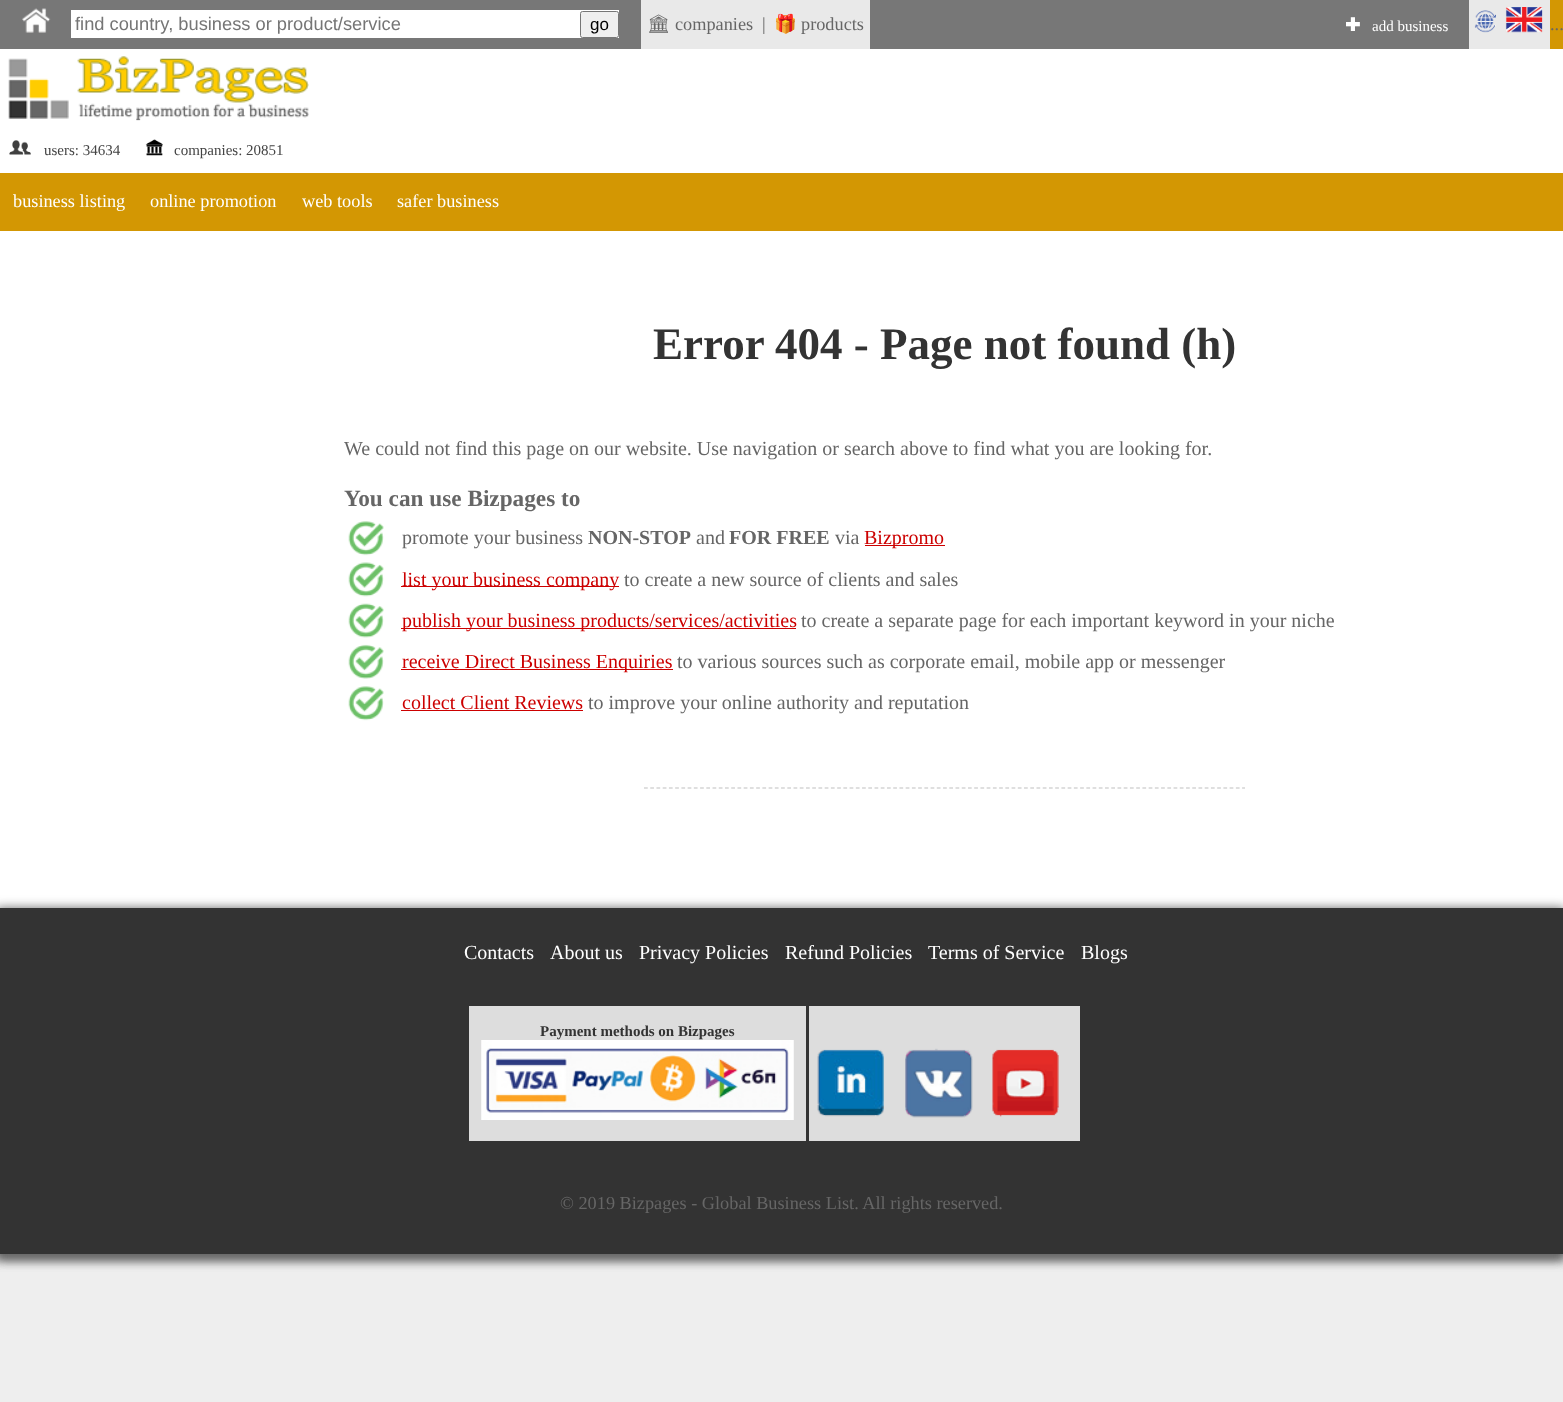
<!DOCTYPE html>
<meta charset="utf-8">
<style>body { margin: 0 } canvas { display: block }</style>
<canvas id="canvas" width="1563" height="1402"></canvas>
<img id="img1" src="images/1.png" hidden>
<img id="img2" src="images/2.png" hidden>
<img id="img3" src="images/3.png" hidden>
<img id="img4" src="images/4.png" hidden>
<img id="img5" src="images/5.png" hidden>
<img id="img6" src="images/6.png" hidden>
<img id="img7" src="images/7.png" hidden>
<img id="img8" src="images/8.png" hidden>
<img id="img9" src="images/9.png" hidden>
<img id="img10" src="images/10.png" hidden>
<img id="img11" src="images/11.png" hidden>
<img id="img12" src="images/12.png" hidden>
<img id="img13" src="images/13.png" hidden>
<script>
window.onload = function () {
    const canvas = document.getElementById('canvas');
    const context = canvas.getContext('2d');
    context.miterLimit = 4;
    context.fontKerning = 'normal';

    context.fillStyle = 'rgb(238, 238, 238)';
    context.fillRect(0, 0, 1563, 1402);
    context.fillStyle = 'rgb(102, 102, 102)';
    context.filter = 'blur(5.5px)';
    context.beginPath();
    context.rect(-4, 0, 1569, 1259);
    context.fill();
    context.filter = 'none';
    context.fillStyle = 'rgb(119, 119, 119)';
    context.fillRect(0, 0, 1469, 49);
    context.drawImage(document.getElementById('img1'), 22, 8, 29, 25);
    context.fillStyle = 'rgb(255, 255, 255)';
    context.fillRect(71, 10, 548, 28);
    context.fillStyle = 'rgb(239, 239, 239)';
    context.beginPath();
    context.roundRect(580.5, 11.5, 38, 26, 2);
    context.fill();
    context.strokeStyle = 'rgb(118, 118, 118)';
    context.stroke();
    context.fillStyle = 'rgb(233, 233, 233)';
    context.fillRect(641, 0, 229, 49);
    context.fillRect(1469, 0, 81, 49);
    context.drawImage(document.getElementById('img2'), 1474, 7, 69, 26);
    context.fillStyle = 'rgb(211, 151, 3)';
    context.fillRect(1550, 0, 13, 49);
    context.fillStyle = 'rgb(255, 255, 255)';
    context.fillRect(0, 49, 1563, 859);
    context.drawImage(document.getElementById('img3'), 8, 56, 301, 65);
    context.drawImage(document.getElementById('img4'), 9, 140, 22, 15);
    context.drawImage(document.getElementById('img5'), 145, 139, 18, 17);
    context.fillStyle = 'rgb(211, 151, 3)';
    context.fillRect(0, 173, 1563, 58);
    context.drawImage(document.getElementById('img6'), 348, 521, 36, 35);
    context.fillStyle = 'rgb(204, 0, 0)';
    context.fillRect(865, 545, 80, 1);
    context.drawImage(document.getElementById('img7'), 348, 562, 36, 35);
    context.fillRect(401, 586, 218, 1);
    context.drawImage(document.getElementById('img8'), 348, 603, 36, 35);
    context.fillRect(401, 628, 395, 1);
    context.drawImage(document.getElementById('img9'), 348, 644, 36, 35);
    context.fillRect(401, 669, 272, 1);
    context.drawImage(document.getElementById('img6'), 348, 686, 36, 35);
    context.fillRect(401, 710, 182, 1);
    context.beginPath();
    context.moveTo(644, 788);
    context.lineTo(1245, 788);
    context.strokeStyle = 'rgb(192, 192, 192)';
    context.lineWidth = 1.2;
    context.setLineDash([3.75, 2.48]);
    context.stroke();
    context.fillStyle = 'rgb(102, 102, 102)';
    context.filter = 'blur(5.5px)';
    context.beginPath();
    context.rect(-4, 908, 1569, 351);
    context.fill();
    context.filter = 'none';
    context.fillStyle = 'rgb(51, 51, 51)';
    context.fillRect(0, 908, 1563, 346);
    context.fillStyle = 'rgb(221, 221, 221)';
    context.fillRect(469, 1006, 337, 135);
    context.drawImage(document.getElementById('img10'), 481, 1040, 313, 80);
    context.fillRect(809, 1006, 271, 135);
    context.drawImage(document.getElementById('img11'), 817, 1049, 67, 68);
    context.drawImage(document.getElementById('img12'), 905, 1048, 68, 70);
    context.drawImage(document.getElementById('img13'), 992, 1049, 67, 68);
    context.font = '18.3px Liberation Sans';
    context.fillStyle = 'rgb(117, 117, 117)';
    context.fillText('find country, business or product/service', 75, 30);
    context.font = '17px Liberation Sans';
    context.fillStyle = 'rgb(0, 0, 0)';
    context.fillText('go', 590, 30);
    context.font = '18.3px Noto Emoji';
    context.fillStyle = 'rgb(102, 102, 102)';
    context.fillText('🏛', 647, 30);
    context.font = '18.3px Liberation Serif';
    context.fillText('companies', 675, 30);
    context.fillText('|', 762, 30);
    context.font = '18.3px Noto Color Emoji';
    context.fillText('🎁', 774, 30);
    context.font = '18.3px Liberation Serif';
    context.fillText('products', 801, 30);
    context.font = 'bold 18.3px DejaVu Sans';
    context.fillStyle = 'rgb(255, 255, 255)';
    context.fillText('✚', 1345, 31);
    context.font = '15px Liberation Serif';
    context.fillText('add business', 1372, 31);
    context.font = '18.3px Liberation Serif';
    context.fillStyle = 'rgb(102, 102, 102)';
    context.fillText('...', 1550, 30);
    context.font = '15px Liberation Serif';
    context.fillStyle = 'rgb(68, 68, 68)';
    context.fillText('users: 34634', 44, 155);
    context.fillText('companies: 20851', 174, 155);
    context.font = '18.3px Liberation Serif';
    context.fillStyle = 'rgb(255, 255, 255)';
    context.fillText('business listing', 13, 207);
    context.fillText('online promotion', 150, 207);
    context.fillText('web tools', 302, 207);
    context.fillText('safer business', 397, 207);
    context.font = 'bold 45px Liberation Serif';
    context.fillStyle = 'rgb(51, 51, 51)';
    context.fillText('Error 404 - Page not found (h)', 653, 359);
    context.font = '20px Liberation Serif';
    context.fillStyle = 'rgb(102, 102, 102)';
    context.fillText('We could not find this page on our website. Use navigation or search above to find what you are looking for.', 344, 455);
    context.font = 'bold 23.25px Liberation Serif';
    context.fillText('You can use Bizpages to', 344, 506);
    context.font = '20px Liberation Serif';
    context.fillText('promote your business', 402, 544);
    context.font = 'bold 20px Liberation Serif';
    context.fillText('NON-STOP', 588, 544);
    context.font = '20px Liberation Serif';
    context.fillText('and', 696, 544);
    context.font = 'bold 20px Liberation Serif';
    context.fillText('FOR FREE', 729, 544);
    context.font = '20px Liberation Serif';
    context.fillText('via', 835, 544);
    context.fillStyle = 'rgb(204, 0, 0)';
    context.fillText('Bizpromo', 864, 544);
    context.fillText('list your business company', 402, 586);
    context.fillStyle = 'rgb(102, 102, 102)';
    context.fillText('to create a new source of clients and sales', 624, 586);
    context.fillStyle = 'rgb(204, 0, 0)';
    context.fillText('publish your business products/services/activities', 402, 627);
    context.fillStyle = 'rgb(102, 102, 102)';
    context.fillText('to create a separate page for each important keyword in your niche', 801, 627);
    context.fillStyle = 'rgb(204, 0, 0)';
    context.fillText('receive Direct Business Enquiries', 402, 668);
    context.fillStyle = 'rgb(102, 102, 102)';
    context.fillText('to various sources such as corporate email, mobile app or messenger', 677, 668);
    context.fillStyle = 'rgb(204, 0, 0)';
    context.fillText('collect Client Reviews', 402, 709);
    context.fillStyle = 'rgb(102, 102, 102)';
    context.fillText('to improve your online authority and reputation', 588, 709);
    context.fillStyle = 'rgb(255, 255, 255)';
    context.fillText('Contacts', 464, 959);
    context.fillText('About us', 550, 959);
    context.fillText('Privacy Policies', 639, 959);
    context.fillText('Refund Policies', 785, 959);
    context.fillText('Terms of Service', 928, 959);
    context.fillText('Blogs', 1081, 959);
    context.font = 'bold 15px Liberation Serif';
    context.fillStyle = 'rgb(51, 51, 51)';
    context.fillText('Payment methods on Bizpages', 540, 1036);
    context.font = '18.3px Liberation Serif';
    context.fillStyle = 'rgb(102, 102, 102)';
    context.fillText('© 2019 Bizpages - Global Business List. All rights reserved.', 560, 1209);
};
</script>
